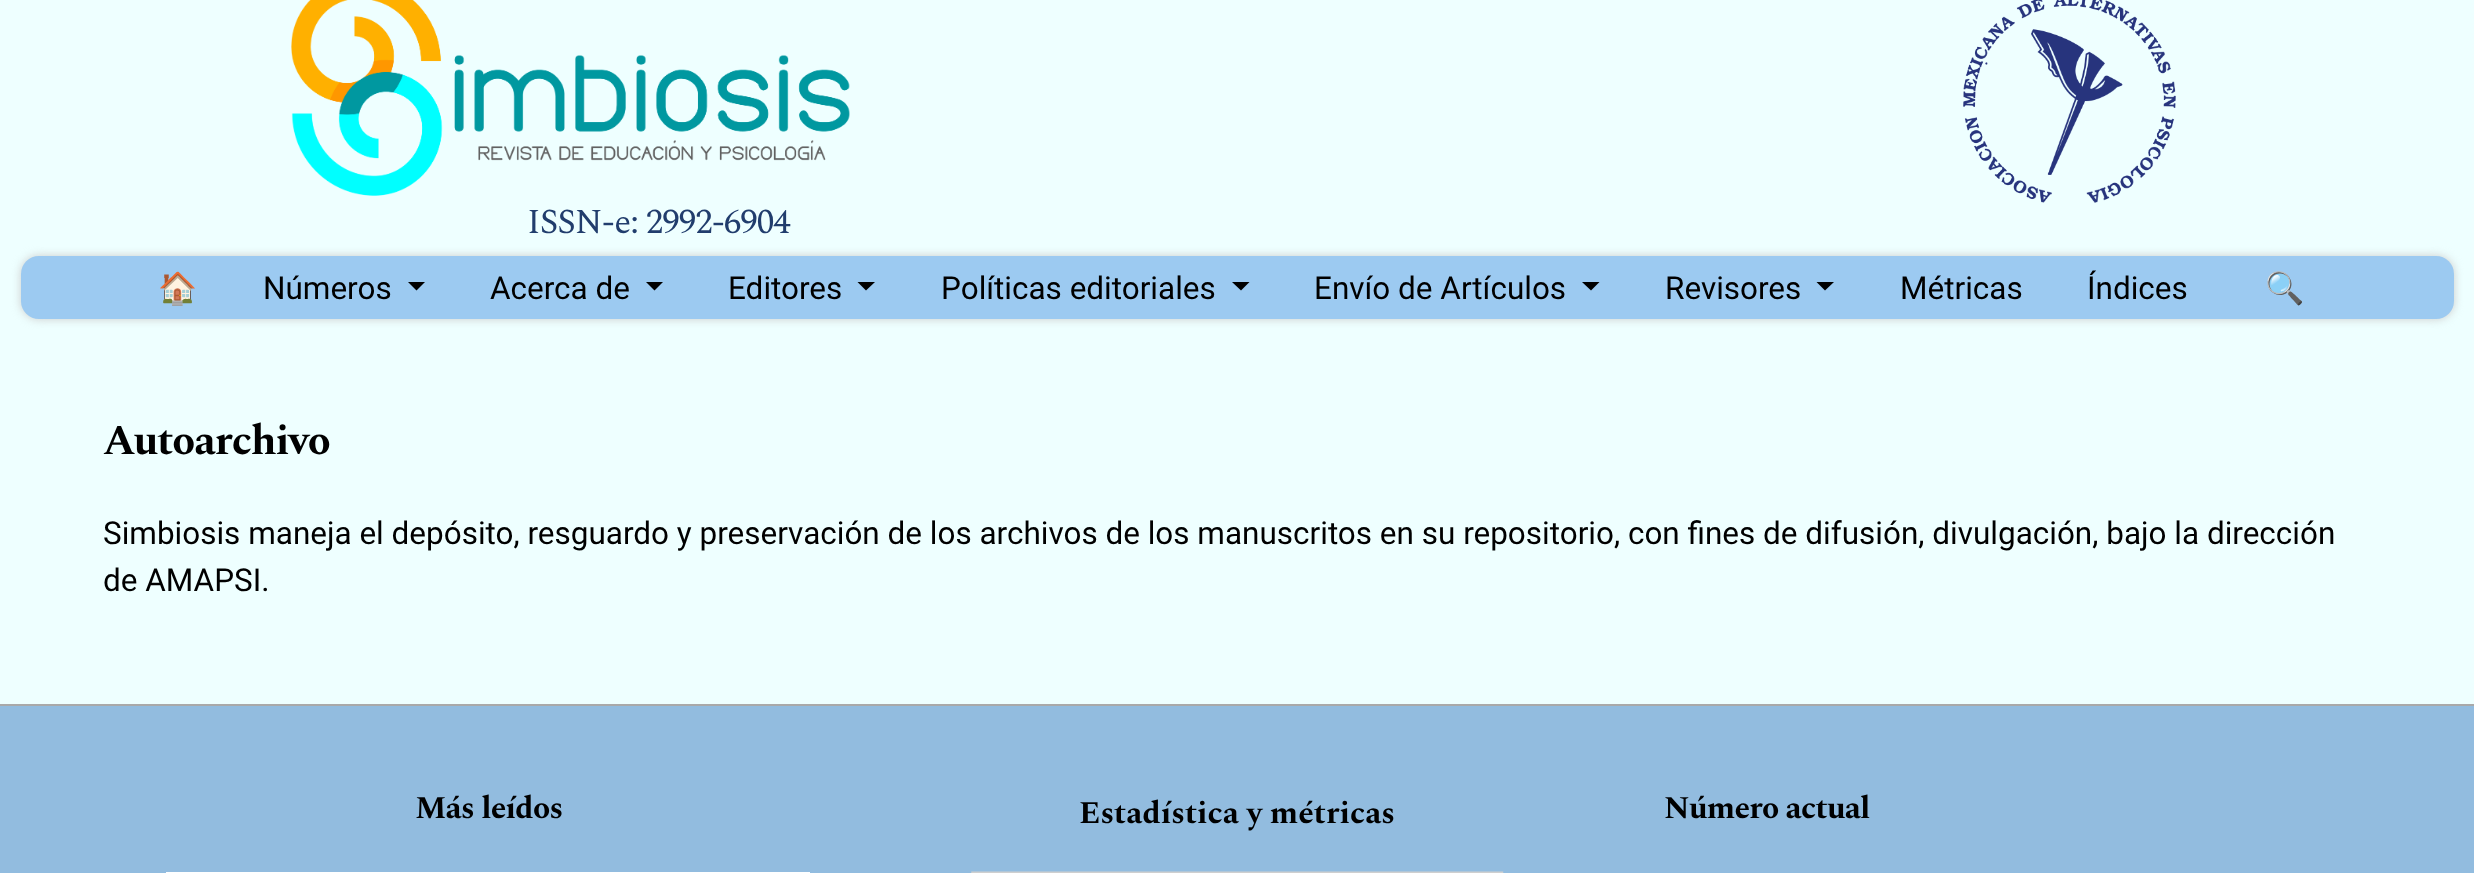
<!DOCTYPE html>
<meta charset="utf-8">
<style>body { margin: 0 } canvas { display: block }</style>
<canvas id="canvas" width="2474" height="873"></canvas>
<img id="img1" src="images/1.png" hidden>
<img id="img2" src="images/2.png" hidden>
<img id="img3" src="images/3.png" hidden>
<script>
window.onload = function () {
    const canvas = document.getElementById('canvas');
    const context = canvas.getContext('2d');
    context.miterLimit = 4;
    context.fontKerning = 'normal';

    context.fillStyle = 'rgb(238, 255, 255)';
    context.fillRect(0, 0, 2474, 873);
    context.drawImage(document.getElementById('img1'), 291, 0, 559, 196);
    context.drawImage(document.getElementById('img2'), 1963, 0, 213, 203);
    context.fillStyle = 'rgb(204, 204, 204)';
    context.filter = 'blur(5px)';
    context.beginPath();
    context.roundRect(21, 256, 2433, 63, 18);
    context.fill();
    context.filter = 'none';
    context.fillStyle = 'rgb(156, 202, 241)';
    context.beginPath();
    context.roundRect(21, 256, 2433, 63, 18);
    context.fill();
    context.fillStyle = 'rgb(0, 0, 0)';
    context.beginPath();
    context.moveTo(408, 282);
    context.lineTo(425, 282);
    context.lineTo(416.5, 290.5);
    context.closePath();
    context.fill();
    context.beginPath();
    context.moveTo(646, 282);
    context.lineTo(663, 282);
    context.lineTo(654.5, 290.5);
    context.closePath();
    context.fill();
    context.beginPath();
    context.moveTo(857.5, 282);
    context.lineTo(875, 282);
    context.lineTo(866, 290.5);
    context.closePath();
    context.fill();
    context.beginPath();
    context.moveTo(1232, 282);
    context.lineTo(1249.5, 282);
    context.lineTo(1241, 290.5);
    context.closePath();
    context.fill();
    context.beginPath();
    context.moveTo(1582, 282);
    context.lineTo(1599.5, 282);
    context.lineTo(1591, 290.5);
    context.closePath();
    context.fill();
    context.beginPath();
    context.moveTo(1816.5, 282);
    context.lineTo(1834, 282);
    context.lineTo(1825, 290.5);
    context.closePath();
    context.fill();
    context.fillStyle = 'rgb(146, 188, 223)';
    context.fillRect(0, 706, 2474, 167);
    context.fillStyle = 'rgb(169, 169, 169)';
    context.fillRect(0, 704, 2474, 2);
    context.fillStyle = 'rgb(255, 255, 255)';
    context.fillRect(166, 872, 644, 1);
    context.drawImage(document.getElementById('img3'), 971, 871, 533, 2);
    context.letterSpacing = '-1px';
    context.font = '35px Spectral';
    context.fillStyle = 'rgb(33, 61, 109)';
    context.fillText('ISSN-e: 2992-6904', 527, 233);
    context.letterSpacing = '0px';
    context.font = '31.5px Noto Color Emoji';
    context.fillStyle = 'rgb(0, 0, 0)';
    context.fillText('🏠', 158, 299);
    context.font = '31.5px Roboto';
    context.fillText('Números', 263, 299);
    context.fillText('Acerca de', 490, 299);
    context.fillText('Editores', 728, 299);
    context.fillText('Políticas editoriales', 941, 299);
    context.fillText('Envío de Artículos', 1314, 299);
    context.fillText('Revisores', 1665, 299);
    context.fillText('Métricas', 1900, 299);
    context.fillText('Índices', 2087, 299);
    context.font = '31.5px Noto Color Emoji';
    context.fillText('🔍', 2265, 299);
    context.letterSpacing = '-1px';
    context.font = 'bold 42px Spectral';
    context.fillText('Autoarchivo', 103, 454);
    context.letterSpacing = '0px';
    context.font = '31.5px Roboto';
    context.fillText('Simbiosis maneja el depósito, resguardo y preservación de los archivos de los manuscritos en su repositorio, con fines de difusión, divulgación, bajo la dirección', 103, 544);
    context.fillText('de AMAPSI.', 103, 591);
    context.letterSpacing = '-0.75px';
    context.font = 'bold 31.5px Spectral';
    context.fillText('Más leídos', 415, 818);
    context.letterSpacing = '0px';
    context.fillText('Estadística y métricas', 1079, 823);
    context.letterSpacing = '-0.75px';
    context.fillText('Número actual', 1664, 818);
};
</script>
